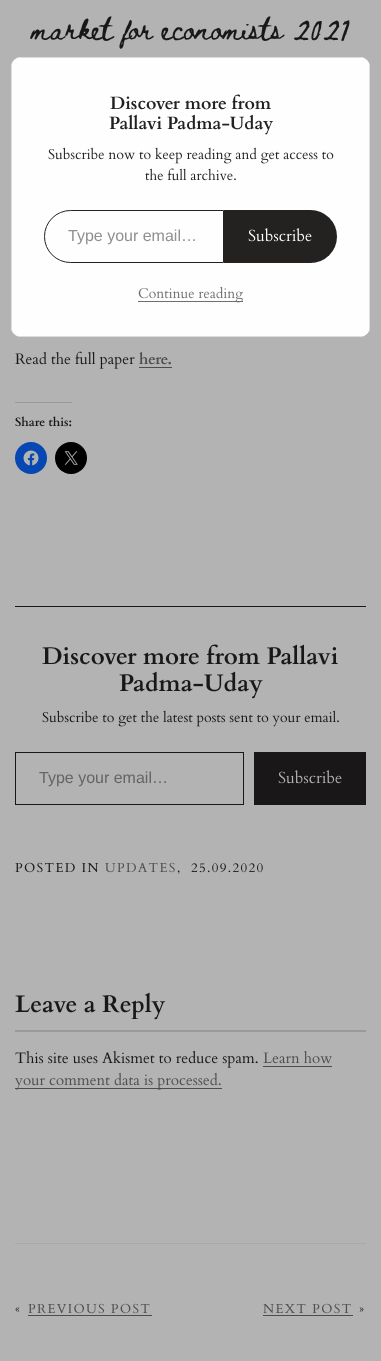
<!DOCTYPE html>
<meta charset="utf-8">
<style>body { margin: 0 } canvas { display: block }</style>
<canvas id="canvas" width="381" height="1361"></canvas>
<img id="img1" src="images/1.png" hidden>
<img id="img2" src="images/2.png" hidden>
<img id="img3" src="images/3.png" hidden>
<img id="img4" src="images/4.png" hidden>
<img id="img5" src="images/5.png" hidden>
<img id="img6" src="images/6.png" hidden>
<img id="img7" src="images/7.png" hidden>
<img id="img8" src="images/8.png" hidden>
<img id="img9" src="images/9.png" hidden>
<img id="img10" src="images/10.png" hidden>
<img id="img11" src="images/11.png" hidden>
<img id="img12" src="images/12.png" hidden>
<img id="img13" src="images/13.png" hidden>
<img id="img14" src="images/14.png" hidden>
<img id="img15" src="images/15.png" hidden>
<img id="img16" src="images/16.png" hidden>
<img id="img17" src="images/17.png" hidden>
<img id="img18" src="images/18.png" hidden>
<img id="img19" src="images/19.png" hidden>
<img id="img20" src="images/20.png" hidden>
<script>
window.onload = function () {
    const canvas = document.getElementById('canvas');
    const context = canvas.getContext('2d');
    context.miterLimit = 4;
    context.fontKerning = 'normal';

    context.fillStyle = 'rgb(179, 179, 179)';
    context.fillRect(0, 0, 381, 1361);
    context.drawImage(document.getElementById('img1'), 15, 351, 120, 18);
    context.fillStyle = 'rgb(77, 77, 77)';
    context.fillRect(139, 367, 33, 1);
    context.fillStyle = 'rgb(154, 154, 155)';
    context.fillRect(15, 402, 57, 1);
    context.fillStyle = 'rgb(6, 71, 179)';
    context.beginPath();
    context.arc(31, 458, 16, 0, 2 * Math.PI);
    context.fill();
    context.drawImage(document.getElementById('img2'), 23, 450, 16, 16);
    context.fillStyle = 'rgb(0, 0, 0)';
    context.beginPath();
    context.arc(71, 458, 16, 0, 2 * Math.PI);
    context.fill();
    context.drawImage(document.getElementById('img3'), 64, 451, 14, 14);
    context.fillStyle = 'rgb(25, 23, 23)';
    context.fillRect(15, 606, 351, 1);
    context.drawImage(document.getElementById('img4'), 42, 710, 297, 17);
    context.strokeStyle = 'rgb(25, 23, 23)';
    context.strokeRect(15.5, 752.5, 228, 52);
    context.fillRect(254, 752, 112, 53);
    context.drawImage(document.getElementById('img5'), 278, 770, 64, 14);
    context.drawImage(document.getElementById('img6'), 15, 862, 84, 11);
    context.drawImage(document.getElementById('img7'), 105, 862, 70, 11);
    context.drawImage(document.getElementById('img8'), 177, 870, 3, 4);
    context.drawImage(document.getElementById('img9'), 191, 863, 72, 10);
    context.fillStyle = 'rgb(154, 154, 155)';
    context.fillRect(15, 1030, 351, 2);
    context.drawImage(document.getElementById('img10'), 15, 1050, 243, 18);
    context.drawImage(document.getElementById('img11'), 263, 1051, 69, 13);
    context.fillStyle = 'rgb(77, 77, 77)';
    context.fillRect(263, 1066, 69, 1);
    context.fillRect(15, 1088, 207, 1);
    context.drawImage(document.getElementById('img12'), 15, 1072, 206, 18);
    context.fillStyle = 'rgb(168, 168, 168)';
    context.fillRect(15, 1243, 351, 1);
    context.drawImage(document.getElementById('img13'), 15, 1307, 5, 5);
    context.drawImage(document.getElementById('img14'), 28, 1303, 122, 11);
    context.fillStyle = 'rgb(77, 77, 77)';
    context.fillRect(28, 1315, 124, 1);
    context.drawImage(document.getElementById('img15'), 263, 1303, 88, 11);
    context.drawImage(document.getElementById('img16'), 359, 1307, 5, 5);
    context.fillRect(263, 1315, 90, 1);
    context.fillStyle = 'rgb(254, 254, 254)';
    context.beginPath();
    context.roundRect(11, 57, 359, 280, 10);
    context.fill();
    context.fillStyle = 'rgb(221, 221, 221)';
    context.beginPath();
    context.moveTo(11, 67);
    context.lineTo(11, 327);
    context.lineTo(12, 331);
    context.lineTo(12, 63);
    context.closePath();
    context.moveTo(21, 57);
    context.lineTo(17, 58);
    context.lineTo(364, 58);
    context.lineTo(360, 57);
    context.closePath();
    context.moveTo(370, 67);
    context.lineTo(369, 63);
    context.lineTo(369, 331);
    context.lineTo(370, 327);
    context.closePath();
    context.moveTo(360, 337);
    context.lineTo(364, 336);
    context.lineTo(17, 336);
    context.lineTo(21, 337);
    context.closePath();
    context.fill('evenodd');
    context.drawImage(document.getElementById('img17'), 48, 147, 286, 17);
    context.drawImage(document.getElementById('img18'), 145, 168, 91, 13);
    context.beginPath();
    context.roundRect(44.5, 210.5, 179, 52, [26, 0, 0, 26]);
    context.strokeStyle = 'rgb(36, 33, 33)';
    context.stroke();
    context.fillStyle = 'rgb(36, 33, 33)';
    context.beginPath();
    context.roundRect(224, 210, 113, 53, [0, 26.5, 26.5, 0]);
    context.fill();
    context.drawImage(document.getElementById('img19'), 248, 228, 64, 14);
    context.fillStyle = 'rgb(110, 110, 110)';
    context.fillRect(138, 301, 105, 1);
    context.drawImage(document.getElementById('img20'), 138, 286, 105, 17);
    context.font = '22px Beth Ellen';
    context.fillStyle = 'rgb(25, 23, 23)';
    context.fillText('market for economists 2021', 31, 39);
    context.font = 'bold 15px Cardo';
    context.fillStyle = 'rgb(77, 77, 77)';
    context.fillText('here.', 139, 364);
    context.font = 'bold 12px Cardo';
    context.fillStyle = 'rgb(25, 23, 23)';
    context.fillText('Share this:', 15, 426);
    context.font = 'bold 24px Cardo';
    context.fillText('Discover more from Pallavi', 42, 664);
    context.fillText('Padma-Uday', 119, 691);
    context.font = '16px Liberation Sans';
    context.fillStyle = 'rgb(102, 101, 101)';
    context.fillText('Type your email…', 39, 783);
    context.font = 'bold 24px Cardo';
    context.fillStyle = 'rgb(25, 23, 23)';
    context.fillText('Leave a Reply', 15, 1012);
    context.font = 'bold 17.75px Cardo';
    context.fillStyle = 'rgb(36, 33, 33)';
    context.fillText('Discover more from', 110, 109);
    context.fillText('Pallavi Padma-Uday', 109, 129);
    context.font = '16px Liberation Sans';
    context.fillStyle = 'rgb(145, 144, 144)';
    context.fillText('Type your email…', 68, 241);
};
</script>
